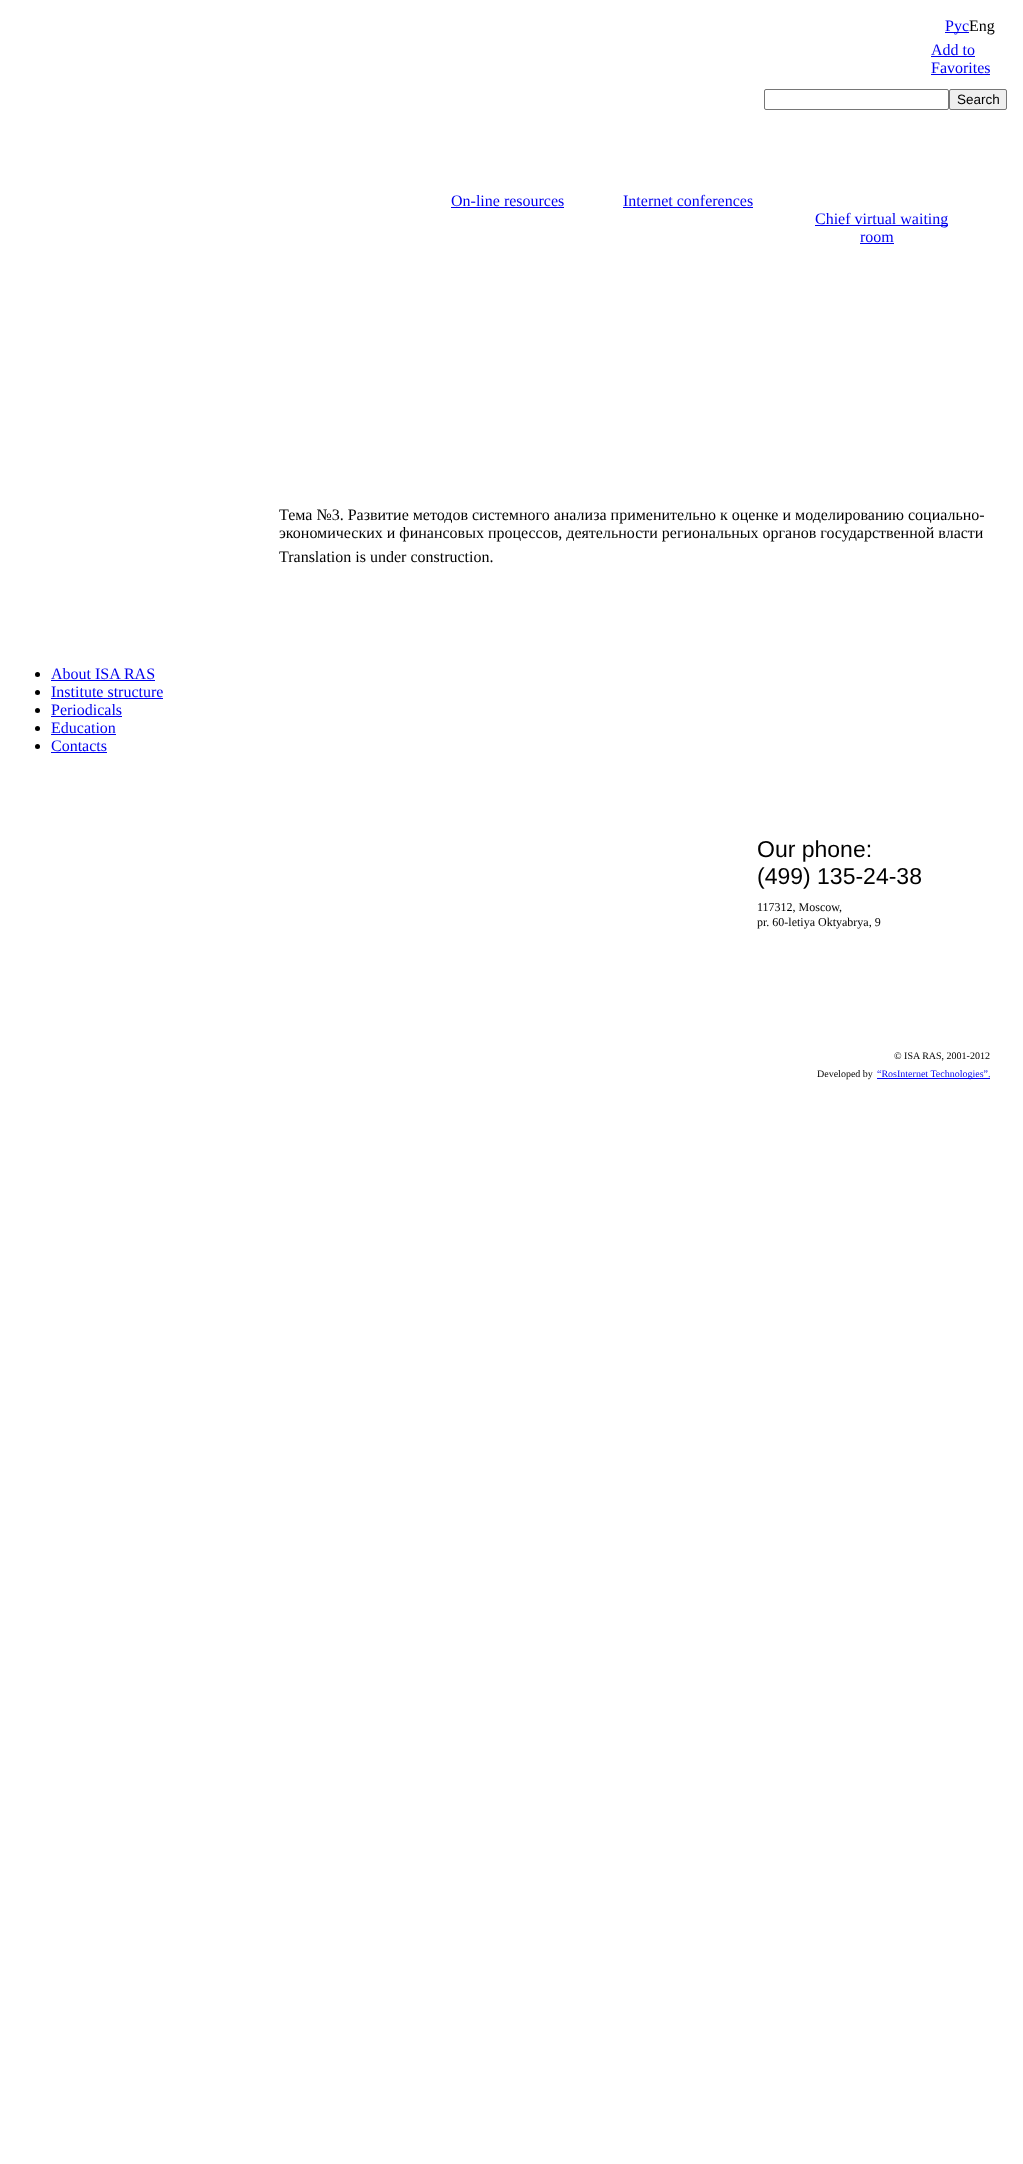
<!DOCTYPE html>
<meta charset="utf-8">
<style>body { margin: 0 } canvas { display: block }</style>
<canvas id="canvas" width="1023" height="2164"></canvas>
<script>
window.onload = function () {
    const canvas = document.getElementById('canvas');
    const context = canvas.getContext('2d');
    context.miterLimit = 4;
    context.fontKerning = 'normal';

    context.fillStyle = 'rgb(255, 255, 255)';
    context.fillRect(0, 0, 1023, 2164);
    context.fillStyle = 'rgb(0, 0, 238)';
    context.fillRect(945, 32, 24, 1);
    context.fillRect(931, 56, 44, 1);
    context.fillRect(931, 74, 59, 1);
    context.beginPath();
    context.roundRect(764.5, 89.5, 184, 20, 1.5);
    context.strokeStyle = 'rgb(118, 118, 118)';
    context.stroke();
    context.fillStyle = 'rgb(239, 239, 239)';
    context.beginPath();
    context.roundRect(949.5, 89.5, 57, 20, 1.5);
    context.fill();
    context.stroke();
    context.fillStyle = 'rgb(0, 0, 238)';
    context.fillRect(451, 207, 113, 1);
    context.fillRect(623, 207, 130, 1);
    context.fillRect(815, 225, 133, 1);
    context.fillRect(860, 243, 34, 1);
    context.fillStyle = 'rgb(0, 0, 0)';
    context.beginPath();
    context.arc(37.5, 674.5, 2.5, 0, 2 * Math.PI);
    context.fill();
    context.fillStyle = 'rgb(0, 0, 238)';
    context.fillRect(51, 680, 104, 1);
    context.fillStyle = 'rgb(0, 0, 0)';
    context.beginPath();
    context.arc(37.5, 692.5, 2.5, 0, 2 * Math.PI);
    context.fill();
    context.fillStyle = 'rgb(0, 0, 238)';
    context.fillRect(51, 698, 112, 1);
    context.fillStyle = 'rgb(0, 0, 0)';
    context.beginPath();
    context.arc(37.5, 710.5, 2.5, 0, 2 * Math.PI);
    context.fill();
    context.fillStyle = 'rgb(0, 0, 238)';
    context.fillRect(51, 716, 71, 1);
    context.fillStyle = 'rgb(0, 0, 0)';
    context.beginPath();
    context.arc(37.5, 728.5, 2.5, 0, 2 * Math.PI);
    context.fill();
    context.fillStyle = 'rgb(0, 0, 238)';
    context.fillRect(51, 734, 65, 1);
    context.fillStyle = 'rgb(0, 0, 0)';
    context.beginPath();
    context.arc(37.5, 746.5, 2.5, 0, 2 * Math.PI);
    context.fill();
    context.fillStyle = 'rgb(0, 0, 238)';
    context.fillRect(51, 752, 56, 1);
    context.fillRect(877, 1078, 113, 1);
    context.font = '16px Liberation Serif';
    context.fillText('Рус', 945, 31);
    context.fillStyle = 'rgb(0, 0, 0)';
    context.fillText('Eng', 969, 31);
    context.fillStyle = 'rgb(0, 0, 238)';
    context.fillText('Add to', 931, 55);
    context.fillText('Favorites', 931, 73);
    context.font = '13.5px Liberation Sans';
    context.fillStyle = 'rgb(0, 0, 0)';
    context.fillText('Search', 957, 104);
    context.font = '16px Liberation Serif';
    context.fillStyle = 'rgb(0, 0, 238)';
    context.fillText('On-line resources', 451, 206);
    context.fillText('Internet conferences', 623, 206);
    context.fillText('Chief virtual waiting', 815, 224);
    context.fillText('room', 860, 242);
    context.fillStyle = 'rgb(0, 0, 0)';
    context.fillText('Тема №3. Развитие методов системного анализа применительно к оценке и моделированию социально-', 279, 520);
    context.fillText('экономических и финансовых процессов, деятельности региональных органов государственной власти', 279, 538);
    context.fillText('Translation is under construction.', 279, 562);
    context.fillStyle = 'rgb(0, 0, 238)';
    context.fillText('About ISA RAS', 51, 679);
    context.fillText('Institute structure', 51, 697);
    context.fillText('Periodicals', 51, 715);
    context.fillText('Education', 51, 733);
    context.fillText('Contacts', 51, 751);
    context.font = '23px Liberation Sans';
    context.fillStyle = 'rgb(0, 0, 0)';
    context.fillText('Our phone:', 757, 857);
    context.fillText('(499) 135-24-38', 757, 884);
    context.font = '12px Liberation Serif';
    context.fillText('117312, Moscow,', 757, 911);
    context.fillText('pr. 60-letiya Oktyabrya, 9', 757, 926);
    context.font = '10px Liberation Serif';
    context.fillText('© ISA RAS, 2001-2012', 894, 1059);
    context.fillText('Developed by', 817, 1077);
    context.fillStyle = 'rgb(0, 0, 238)';
    context.fillText('“RosInternet Technologies”.', 877, 1077);
};
</script>
